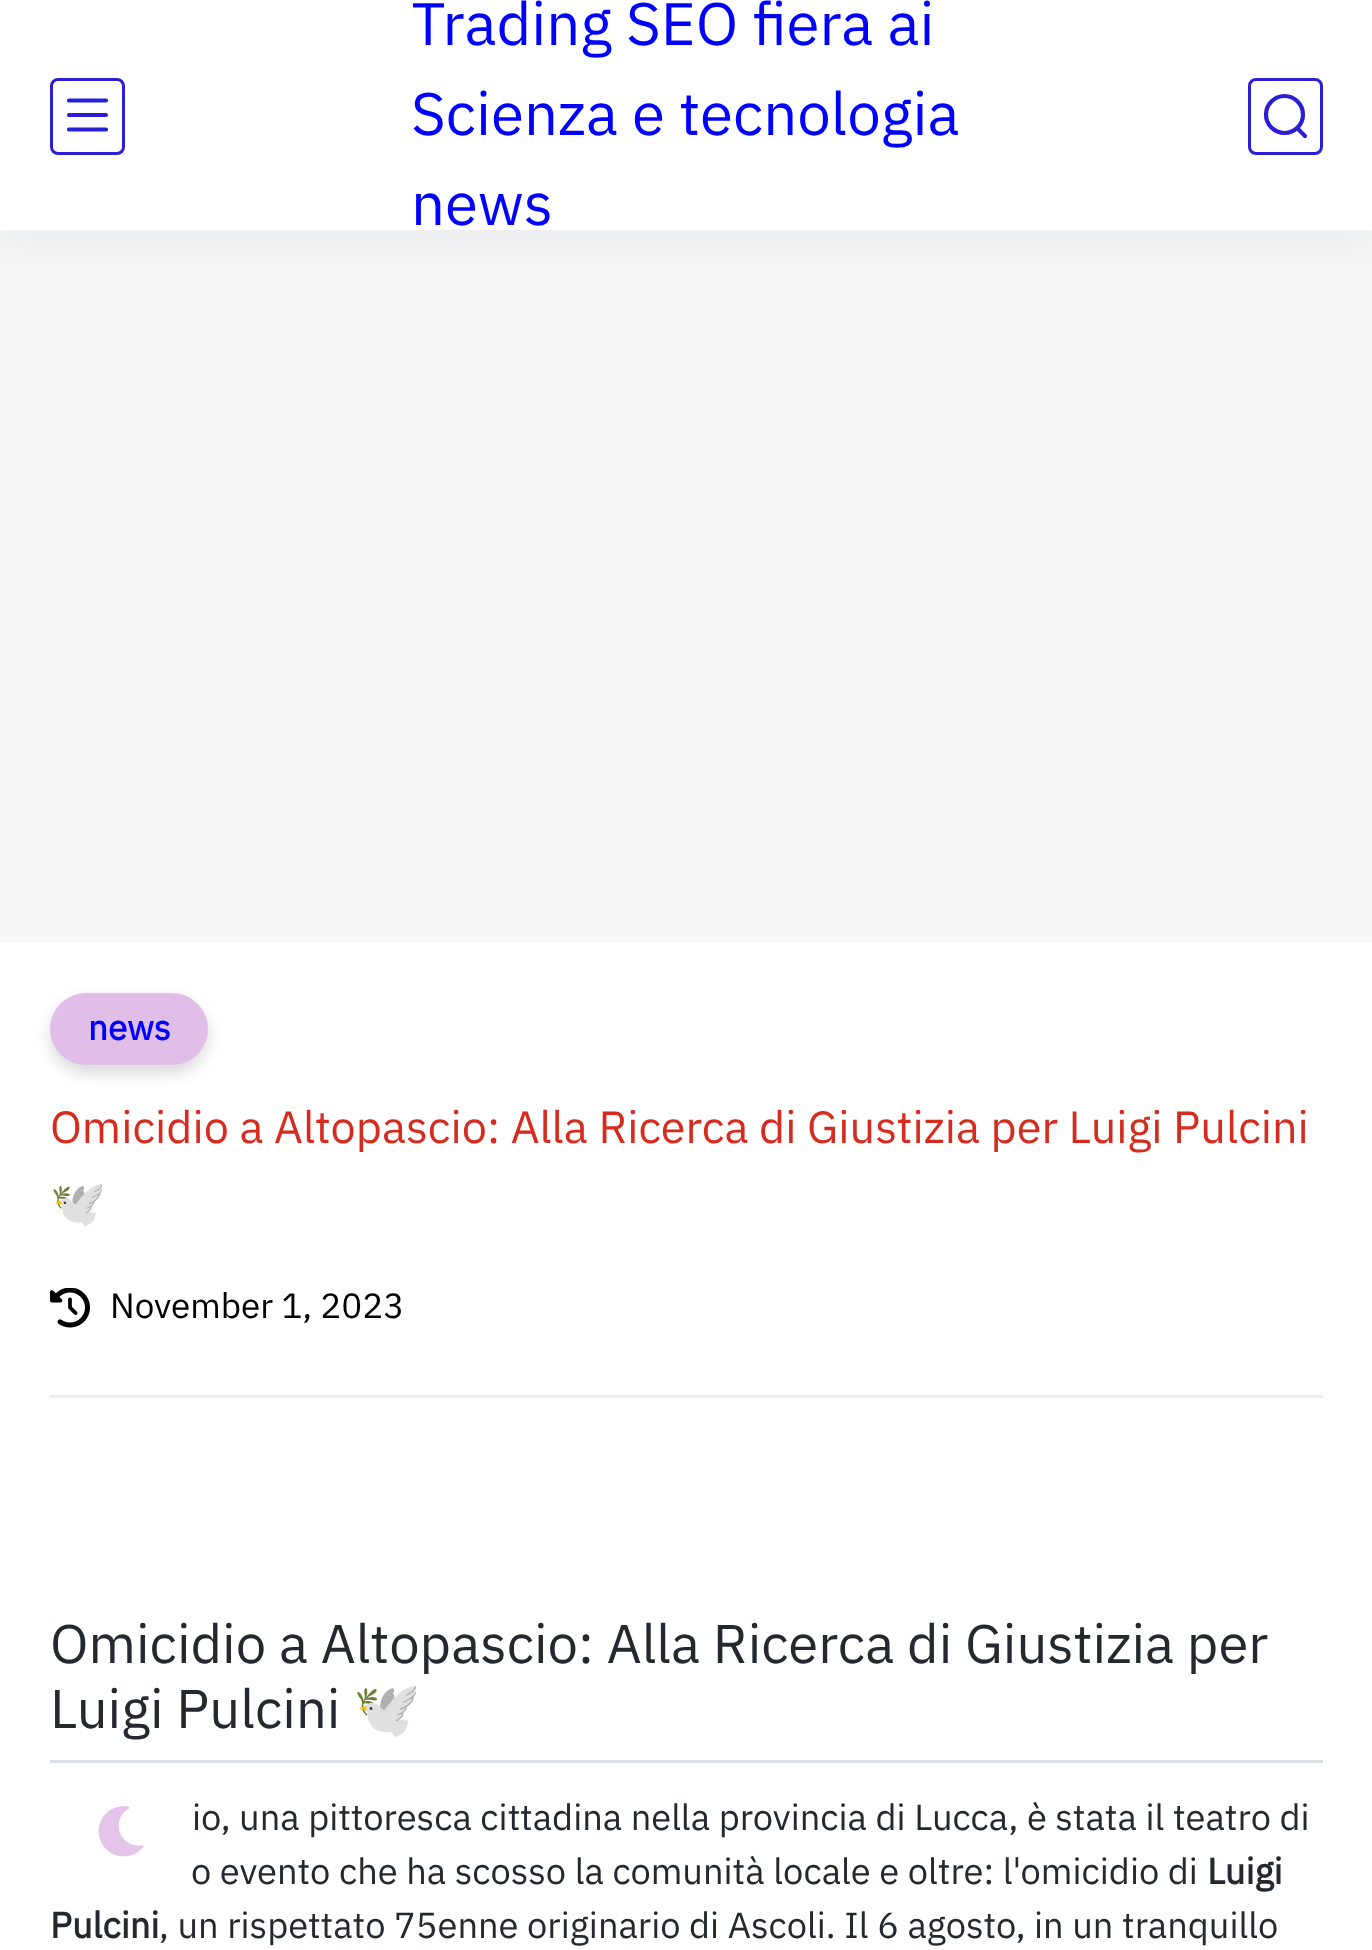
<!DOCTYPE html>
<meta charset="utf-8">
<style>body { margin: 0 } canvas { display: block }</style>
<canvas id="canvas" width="1372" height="1950"></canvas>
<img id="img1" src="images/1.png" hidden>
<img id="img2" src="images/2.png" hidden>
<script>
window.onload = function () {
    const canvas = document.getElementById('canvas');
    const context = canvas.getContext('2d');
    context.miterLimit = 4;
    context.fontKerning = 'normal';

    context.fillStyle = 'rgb(247, 247, 247)';
    context.fillRect(0, 0, 1372, 1950);
    context.fillStyle = 'rgba(9, 32, 76, 0.05)';
    context.filter = 'blur(17.5px)';
    context.beginPath();
    context.rect(0, 15, 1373, 230);
    context.fill();
    context.filter = 'none';
    context.fillStyle = 'rgb(255, 255, 255)';
    context.fillRect(0, 0, 1372, 230);
    context.beginPath();
    context.roundRect(51.5, 79.5, 72, 74, 6.5);
    context.strokeStyle = 'rgb(43, 31, 213)';
    context.lineWidth = 3;
    context.stroke();
    context.beginPath();
    context.moveTo(69, 115);
    context.lineTo(106, 115);
    context.moveTo(69, 100.5);
    context.lineTo(106, 100.5);
    context.moveTo(69, 129.5);
    context.lineTo(106, 129.5);
    context.lineWidth = 4.2;
    context.lineCap = 'round';
    context.lineJoin = 'round';
    context.stroke();
    context.beginPath();
    context.roundRect(1249.5, 79.5, 72, 74, 6.5);
    context.lineWidth = 3;
    context.lineJoin = 'miter';
    context.stroke();
    context.beginPath();
    context.arc(1284.5, 114.5, 18.5, 0, 2 * Math.PI);
    context.lineWidth = 4.2;
    context.stroke();
    context.beginPath();
    context.moveTo(1297.5, 128.5);
    context.lineTo(1305, 136);
    context.lineJoin = 'round';
    context.stroke();
    context.fillRect(0, 943, 1372, 1007);
    context.fillStyle = 'rgb(238, 238, 238)';
    context.fillRect(50, 1395, 1273, 3);
    context.fillStyle = 'rgba(0, 0, 0, 0.15)';
    context.filter = 'blur(7.5px)';
    context.beginPath();
    context.roundRect(50, 1000, 158, 73, 36.5);
    context.fill();
    context.filter = 'none';
    context.fillStyle = 'rgb(225, 190, 231)';
    context.beginPath();
    context.roundRect(50, 993, 158, 72, 36);
    context.fill();
    context.drawImage(document.getElementById('img1'), 50, 1288, 40, 40);
    context.fillStyle = 'rgb(216, 222, 228)';
    context.fillRect(50, 1760, 1273, 3);
    context.drawImage(document.getElementById('img2'), 98, 1806, 46, 51);
    context.save();
    context.beginPath();
    context.rect(413, 0, 550, 250);
    context.clip();
    context.font = '60px IBM Plex Sans Arabic';
    context.fillStyle = 'rgb(0, 0, 255)';
    context.fillText('Trading', 411, 45);
    context.restore();
    context.font = '60px IBM Plex Sans Arabic';
    context.fillStyle = 'rgb(0, 0, 255)';
    context.fillText('SEO fiera ai', 626, 45);
    context.fillText('Scienza e tecnologia', 411, 135);
    context.fillText('news', 411, 225);
    context.font = 'bold 35px IBM Plex Sans Arabic';
    context.fillText('news', 88, 1040);
    context.font = '45px IBM Plex Sans Arabic';
    context.fillStyle = 'rgb(213, 44, 31)';
    context.fillText('Omicidio a Altopascio: Alla Ricerca di Giustizia per Luigi Pulcini', 50, 1143);
    context.font = '45px Noto Color Emoji';
    context.fillText('🕊️', 50, 1219);
    context.font = '35px IBM Plex Sans Arabic';
    context.fillStyle = 'rgb(0, 0, 0)';
    context.fillText('November 1, 2023', 110, 1318);
    context.font = '54.4px IBM Plex Sans Arabic';
    context.fillStyle = 'rgb(36, 41, 47)';
    context.fillText('Omicidio a Altopascio: Alla Ricerca di Giustizia per', 50, 1663);
    context.fillText('Luigi Pulcini', 50, 1728);
    context.font = '54.4px Noto Color Emoji';
    context.fillText('🕊️', 353, 1728);
    context.font = '36.25px IBM Plex Sans Arabic';
    context.fillText('io, una pittoresca cittadina nella provincia di Lucca, è stata il teatro di', 192, 1830);
    context.fillText('o evento che ha scosso la comunità locale e oltre: l\'omicidio di', 191, 1884);
    context.font = 'bold 36.25px IBM Plex Sans Arabic';
    context.fillText('Luigi', 1207, 1884);
    context.fillText('Pulcini', 50, 1938);
    context.font = '36.25px IBM Plex Sans Arabic';
    context.fillText(', un rispettato 75enne originario di Ascoli. Il 6 agosto, in un tranquillo', 159, 1938);
};
</script>
